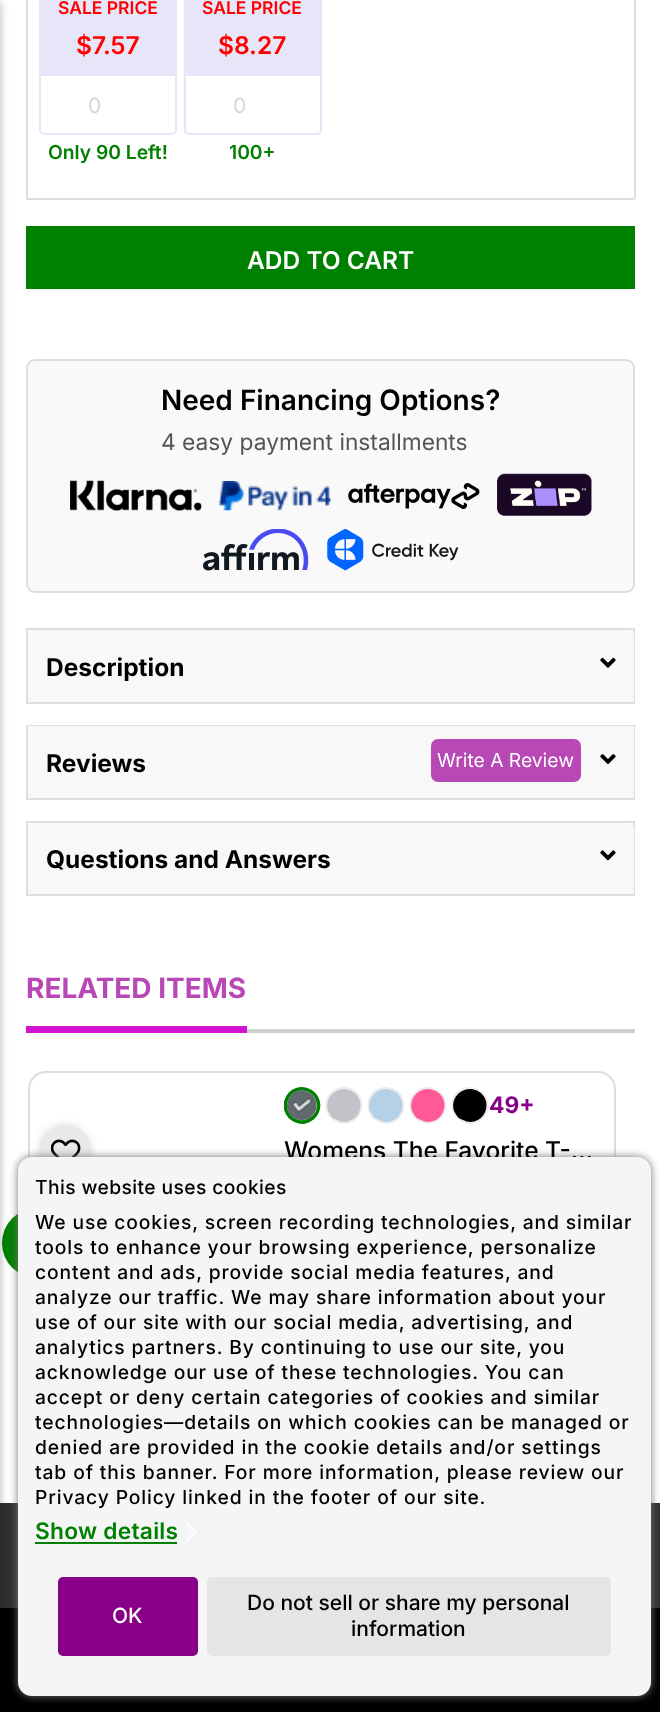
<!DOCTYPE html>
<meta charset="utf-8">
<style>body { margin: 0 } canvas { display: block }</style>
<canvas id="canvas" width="660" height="1712"></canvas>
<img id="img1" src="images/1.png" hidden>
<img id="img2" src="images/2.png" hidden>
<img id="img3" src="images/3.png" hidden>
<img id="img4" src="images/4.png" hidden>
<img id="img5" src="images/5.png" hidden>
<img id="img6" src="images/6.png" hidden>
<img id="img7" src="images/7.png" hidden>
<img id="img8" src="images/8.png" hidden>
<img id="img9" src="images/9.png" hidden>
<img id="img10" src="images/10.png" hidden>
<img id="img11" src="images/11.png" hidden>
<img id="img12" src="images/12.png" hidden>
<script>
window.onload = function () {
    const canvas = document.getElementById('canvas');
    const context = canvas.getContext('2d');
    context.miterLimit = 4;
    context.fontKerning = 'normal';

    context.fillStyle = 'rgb(255, 255, 255)';
    context.fillRect(0, 0, 660, 1712);
    context.beginPath();
    context.roundRect(29, 1072, 586, 343, 17);
    context.strokeStyle = 'rgb(221, 221, 221)';
    context.lineWidth = 2;
    context.stroke();
    context.fillStyle = 'rgb(0, 128, 0)';
    context.beginPath();
    context.arc(37, 1243, 35, 0, 2 * Math.PI);
    context.fill();
    context.fillStyle = 'rgb(49, 49, 49)';
    context.fillRect(0, 1503, 660, 105);
    context.fillStyle = 'rgb(0, 0, 0)';
    context.fillRect(0, 1608, 660, 104);
    context.fillStyle = 'rgba(0, 0, 0, 0.3)';
    context.filter = 'blur(4.5px)';
    context.beginPath();
    context.rect(-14, 2, 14, 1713);
    context.fill();
    context.filter = 'none';
    context.fillStyle = 'rgb(222, 222, 222)';
    context.fillRect(634, 0, 2, 198);
    context.fillRect(26, 0, 2, 198);
    context.fillStyle = 'rgb(231, 230, 248)';
    context.fillRect(39, 0, 138, 74);
    context.beginPath();
    context.roundRect(40, 75, 136, 59, [0, 0, 4, 4]);
    context.strokeStyle = 'rgb(231, 230, 248)';
    context.stroke();
    context.fillRect(184, 0, 138, 74);
    context.beginPath();
    context.roundRect(185, 75, 136, 59, [0, 0, 4, 4]);
    context.stroke();
    context.fillStyle = 'rgb(222, 222, 222)';
    context.fillRect(26, 198, 609, 2);
    context.fillStyle = 'rgb(0, 128, 0)';
    context.fillRect(26, 226, 609, 63);
    context.fillStyle = 'rgb(249, 249, 249)';
    context.beginPath();
    context.roundRect(27, 360, 607, 232, 8);
    context.fill();
    context.strokeStyle = 'rgb(221, 221, 221)';
    context.stroke();
    context.drawImage(document.getElementById('img1'), 70, 480, 132, 31);
    context.drawImage(document.getElementById('img2'), 219, 481, 112, 30);
    context.drawImage(document.getElementById('img3'), 348, 483, 132, 26);
    context.drawImage(document.getElementById('img4'), 497, 473, 95, 43);
    context.drawImage(document.getElementById('img5'), 203, 529, 106, 42);
    context.drawImage(document.getElementById('img6'), 327, 529, 132, 42);
    context.strokeStyle = 'rgb(223, 223, 223)';
    context.strokeRect(27, 629, 607, 74);
    context.fillStyle = 'rgb(248, 248, 248)';
    context.beginPath();
    context.roundRect(28, 630, 606, 72, [5, 5, 0, 0]);
    context.fill();
    context.drawImage(document.getElementById('img7'), 600, 657, 16, 11);
    context.strokeRect(27, 726, 607, 73);
    context.fillRect(28, 726, 606, 72);
    context.drawImage(document.getElementById('img8'), 600, 754, 16, 10);
    context.fillStyle = 'rgb(183, 72, 181)';
    context.beginPath();
    context.roundRect(432, 740, 148, 41, 6);
    context.fill();
    context.strokeStyle = 'rgb(183, 72, 181)';
    context.stroke();
    context.strokeStyle = 'rgb(223, 223, 223)';
    context.strokeRect(27, 822, 607, 73);
    context.fillStyle = 'rgb(248, 248, 248)';
    context.beginPath();
    context.roundRect(28, 823, 606, 71, [5, 5, 0, 0]);
    context.fill();
    context.drawImage(document.getElementById('img9'), 600, 850, 16, 11);
    context.fillStyle = 'rgb(207, 207, 207)';
    context.fillRect(247, 1029, 388, 4);
    context.fillStyle = 'rgb(208, 20, 208)';
    context.fillRect(26, 1026, 221, 7);
    context.save();
    context.beginPath();
    context.rect(284, 1087, 210, 37);
    context.clip();
    context.beginPath();
    context.moveTo(309, 1090.5);
    context.bezierCurveTo(317, 1094, 321, 1104, 317, 1112.5);
    context.bezierCurveTo(313, 1120.5, 303, 1124.5, 295, 1120.5);
    context.bezierCurveTo(286.5, 1116.5, 283, 1106.5, 287, 1098.5);
    context.bezierCurveTo(290.5, 1090, 300.5, 1086.5, 309, 1090.5);
    context.closePath();
    context.strokeStyle = 'rgb(0, 128, 0)';
    context.lineWidth = 3.5;
    context.stroke();
    context.restore();
    context.fillStyle = 'rgb(97, 107, 109)';
    context.beginPath();
    context.moveTo(308, 1092);
    context.bezierCurveTo(322.5, 1098.5, 317.5, 1120.5, 302, 1120);
    context.bezierCurveTo(299.5, 1120, 296.5, 1119.5, 294.5, 1118.5);
    context.bezierCurveTo(278, 1108, 291.5, 1084, 308, 1092);
    context.closePath();
    context.fill();
    context.drawImage(document.getElementById('img10'), 291, 1097, 22, 16);
    context.beginPath();
    context.moveTo(351.5, 1089.5);
    context.bezierCurveTo(360, 1093.5, 364, 1104, 359.5, 1113);
    context.bezierCurveTo(355.5, 1121.5, 345, 1125.5, 336.5, 1121);
    context.bezierCurveTo(327.5, 1117, 324, 1106.5, 328, 1098);
    context.bezierCurveTo(332, 1089, 342.5, 1085.5, 351.5, 1089.5);
    context.closePath();
    context.strokeStyle = 'rgb(235, 235, 235)';
    context.lineWidth = 1.8;
    context.stroke();
    context.fillStyle = 'rgb(194, 195, 200)';
    context.beginPath();
    context.moveTo(351, 1090.5);
    context.bezierCurveTo(365, 1097, 363, 1117.5, 348, 1121.5);
    context.bezierCurveTo(345.5, 1122, 343, 1122, 340.5, 1121.5);
    context.lineTo(333.5, 1118.5);
    context.bezierCurveTo(331.5, 1117, 330, 1114.5, 328.5, 1112);
    context.bezierCurveTo(322.5, 1098.5, 337, 1084, 351, 1090.5);
    context.closePath();
    context.fill();
    context.beginPath();
    context.moveTo(393.5, 1089.5);
    context.bezierCurveTo(402, 1093.5, 406, 1104, 401.5, 1113);
    context.bezierCurveTo(397.5, 1121.5, 387, 1125.5, 378.5, 1121);
    context.bezierCurveTo(369.5, 1117, 366, 1106.5, 370, 1098);
    context.bezierCurveTo(374, 1089, 384.5, 1085.5, 393.5, 1089.5);
    context.closePath();
    context.stroke();
    context.fillStyle = 'rgb(181, 209, 232)';
    context.beginPath();
    context.moveTo(393, 1090.5);
    context.bezierCurveTo(407, 1097, 405, 1117.5, 390, 1121.5);
    context.bezierCurveTo(387.5, 1122, 385, 1122, 382.5, 1121.5);
    context.lineTo(375.5, 1118.5);
    context.bezierCurveTo(373.5, 1117, 372, 1114.5, 370.5, 1112);
    context.bezierCurveTo(364.5, 1098.5, 379, 1084, 393, 1090.5);
    context.closePath();
    context.fill();
    context.beginPath();
    context.moveTo(435.5, 1089.5);
    context.bezierCurveTo(444, 1093.5, 448, 1104, 443.5, 1113);
    context.bezierCurveTo(439.5, 1121.5, 429, 1125.5, 420.5, 1121);
    context.bezierCurveTo(411.5, 1117, 408, 1106.5, 412, 1098);
    context.bezierCurveTo(416, 1089, 426.5, 1085.5, 435.5, 1089.5);
    context.closePath();
    context.stroke();
    context.fillStyle = 'rgb(255, 89, 151)';
    context.beginPath();
    context.moveTo(435, 1090.5);
    context.bezierCurveTo(449, 1097, 447, 1117.5, 432, 1121.5);
    context.bezierCurveTo(429.5, 1122, 427, 1122, 424.5, 1121.5);
    context.lineTo(417.5, 1118.5);
    context.bezierCurveTo(415.5, 1117, 414, 1114.5, 412.5, 1112);
    context.bezierCurveTo(406.5, 1098.5, 421, 1084, 435, 1090.5);
    context.closePath();
    context.fill();
    context.beginPath();
    context.moveTo(477.5, 1089.5);
    context.bezierCurveTo(486, 1093.5, 490, 1104, 485.5, 1113);
    context.bezierCurveTo(481.5, 1121.5, 471, 1125.5, 462.5, 1121);
    context.bezierCurveTo(453.5, 1117, 450, 1106.5, 454, 1098);
    context.bezierCurveTo(458, 1089, 468.5, 1085.5, 477.5, 1089.5);
    context.closePath();
    context.stroke();
    context.fillStyle = 'rgb(0, 0, 0)';
    context.beginPath();
    context.moveTo(477, 1090.5);
    context.bezierCurveTo(491, 1097, 489, 1117.5, 474, 1121.5);
    context.bezierCurveTo(471.5, 1122, 469, 1122, 466.5, 1121.5);
    context.lineTo(459.5, 1118.5);
    context.bezierCurveTo(457.5, 1117, 456, 1114.5, 454.5, 1112);
    context.bezierCurveTo(448.5, 1098.5, 463, 1084, 477, 1090.5);
    context.closePath();
    context.fill();
    context.fillStyle = 'rgb(221, 221, 221)';
    context.filter = 'blur(4.5px)';
    context.beginPath();
    context.roundRect(39, 1125, 52, 53, 26);
    context.fill();
    context.filter = 'none';
    context.fillStyle = 'rgb(233, 233, 233)';
    context.beginPath();
    context.roundRect(39, 1125, 52, 53, 26);
    context.fill();
    context.drawImage(document.getElementById('img11'), 51, 1139, 30, 18);
    context.drawImage(document.getElementById('img12'), 651, 1502, 9, 1);
    context.fillStyle = 'rgb(119, 117, 117)';
    context.filter = 'blur(4.5px)';
    context.beginPath();
    context.roundRect(18, 1157, 633, 539, 14);
    context.fill();
    context.filter = 'none';
    context.font = '600 17.5px Inter';
    context.fillStyle = 'rgb(255, 0, 0)';
    context.fillText('SALE PRICE', 58, 14);
    context.font = '600 24.5px Inter';
    context.fillText('$7.57', 76, 54);
    context.font = '21px Inter';
    context.fillStyle = 'rgb(215, 213, 213)';
    context.fillText('0', 88, 113);
    context.font = '600 19.25px Inter';
    context.fillStyle = 'rgb(0, 128, 0)';
    context.fillText('Only 90 Left!', 48, 159);
    context.font = '600 17.5px Inter';
    context.fillStyle = 'rgb(255, 0, 0)';
    context.fillText('SALE PRICE', 202, 14);
    context.font = '600 24.5px Inter';
    context.fillText('$8.27', 218, 54);
    context.font = '21px Inter';
    context.fillStyle = 'rgb(215, 213, 213)';
    context.fillText('0', 233, 113);
    context.font = '600 19.25px Inter';
    context.fillStyle = 'rgb(0, 128, 0)';
    context.fillText('100+', 229, 159);
    context.font = '600 24.5px Inter';
    context.fillStyle = 'rgb(255, 255, 255)';
    context.fillText('ADD TO CART', 247, 269);
    context.font = '600 28px Inter';
    context.fillStyle = 'rgb(0, 0, 0)';
    context.fillText('Need Financing Options?', 161, 410);
    context.font = '22.75px Inter';
    context.fillStyle = 'rgb(84, 84, 84)';
    context.fillText('4 easy payment installments', 161, 450);
    context.font = 'bold 24.5px Inter';
    context.fillStyle = 'rgb(0, 0, 0)';
    context.fillText('Description', 46, 676);
    context.fillText('Reviews', 46, 772);
    context.font = '19.25px Inter';
    context.fillStyle = 'rgb(255, 255, 255)';
    context.fillText('Write A Review', 437, 767);
    context.font = 'bold 24.5px Inter';
    context.fillStyle = 'rgb(0, 0, 0)';
    context.fillText('Questions and Answers', 46, 868);
    context.font = 'bold 28px Inter';
    context.fillStyle = 'rgb(183, 72, 181)';
    context.fillText('RELATED ITEMS', 26, 998);
    context.font = 'bold 22.75px Inter';
    context.fillStyle = 'rgb(135, 0, 135)';
    context.fillText('49+', 489, 1113);
    context.font = '500 24.5px Inter';
    context.fillStyle = 'rgb(0, 0, 0)';
    context.fillText('Womens The Favorite T-…', 284, 1159);
    context.fillStyle = 'rgb(245, 245, 245)';
    context.beginPath();
    context.roundRect(18, 1157, 633, 539, 14);
    context.fill();
    context.letterSpacing = '0.4px';
    context.font = '500 19.25px Inter';
    context.fillStyle = 'rgb(0, 0, 0)';
    context.fillText('This website uses cookies', 35, 1194);
    context.letterSpacing = '0.88px';
    context.fillText('We use cookies, screen recording technologies, and similar', 35, 1229);
    context.fillText('tools to enhance your browsing experience, personalize', 35, 1254);
    context.fillText('content and ads, provide social media features, and', 35, 1279);
    context.fillText('analyze our traffic. We may share information about your', 35, 1304);
    context.fillText('use of our site with our social media, advertising, and', 35, 1329);
    context.fillText('analytics partners. By continuing to use our site, you', 35, 1354);
    context.fillText('acknowledge our use of these technologies. You can', 35, 1379);
    context.fillText('accept or deny certain categories of cookies and similar', 35, 1404);
    context.fillText('technologies—details on which cookies can be managed or', 35, 1429);
    context.fillText('denied are provided in the cookie details and/or settings', 35, 1454);
    context.fillText('tab of this banner. For more information, please review our', 35, 1479);
    context.fillText('Privacy Policy linked in the footer of our site.', 35, 1504);
    context.letterSpacing = '0.25px';
    context.font = '600 22.75px Inter';
    context.fillStyle = 'rgb(0, 128, 0)';
    context.fillText('Show details', 35, 1539);
    context.fillRect(35, 1542, 142, 2);
    context.fillStyle = 'rgb(255, 255, 255)';
    context.beginPath();
    context.moveTo(187.5, 1523);
    context.lineTo(196.5, 1532);
    context.lineTo(195, 1533);
    context.lineTo(186, 1524);
    context.closePath();
    context.fill();
    context.beginPath();
    context.moveTo(195, 1531);
    context.lineTo(196.5, 1532);
    context.lineTo(187.5, 1541);
    context.lineTo(186, 1540);
    context.closePath();
    context.fill();
    context.fillStyle = 'rgb(135, 0, 135)';
    context.beginPath();
    context.roundRect(60, 1579, 136, 75, 3);
    context.fill();
    context.strokeStyle = 'rgb(135, 0, 135)';
    context.lineWidth = 4;
    context.stroke();
    context.letterSpacing = '0px';
    context.font = '500 21px Inter';
    context.fillStyle = 'rgb(255, 255, 255)';
    context.fillText('OK', 112, 1623);
    context.fillStyle = 'rgb(229, 229, 229)';
    context.beginPath();
    context.roundRect(209, 1579, 400, 75, 3);
    context.fill();
    context.strokeStyle = 'rgb(229, 229, 229)';
    context.stroke();
    context.fillStyle = 'rgb(0, 0, 0)';
    context.fillText('Do not sell or share my personal', 247, 1610);
    context.fillText('information', 351, 1636);
};
</script>
